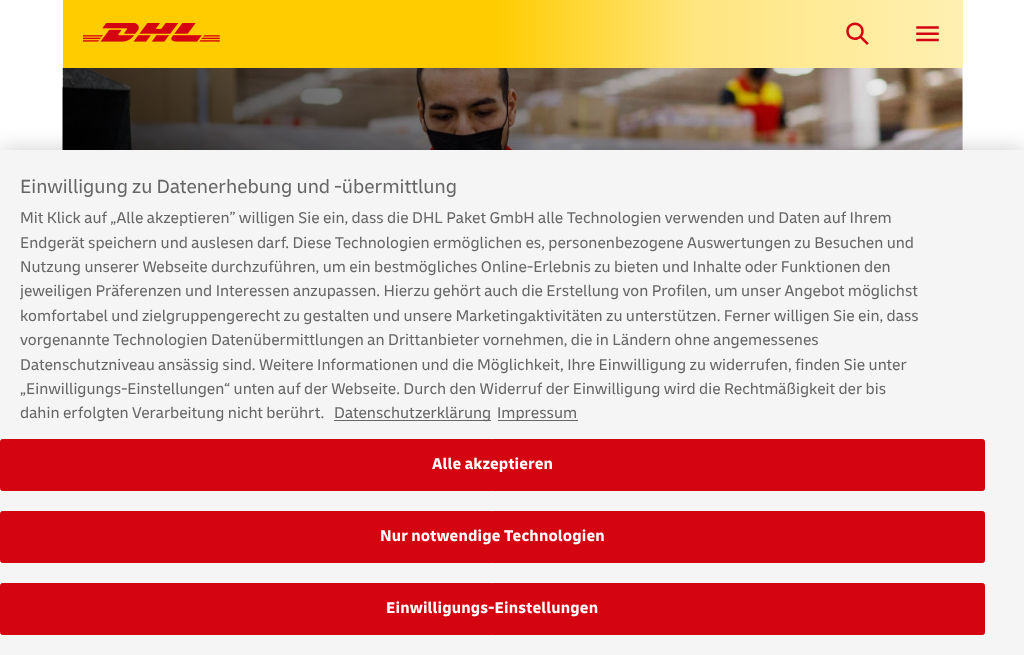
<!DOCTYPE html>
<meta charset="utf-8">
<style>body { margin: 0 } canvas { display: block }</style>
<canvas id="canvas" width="1024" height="655"></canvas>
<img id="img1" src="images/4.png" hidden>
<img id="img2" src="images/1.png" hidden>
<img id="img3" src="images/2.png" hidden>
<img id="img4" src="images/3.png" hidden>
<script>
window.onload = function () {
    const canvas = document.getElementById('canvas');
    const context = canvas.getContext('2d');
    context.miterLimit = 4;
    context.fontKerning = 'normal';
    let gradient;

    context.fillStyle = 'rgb(255, 255, 255)';
    context.fillRect(0, 0, 1024, 655);
    context.drawImage(document.getElementById('img1'), 62, 67, 901, 83);
    gradient = context.createLinearGradient(63, 34, 963, 34);
    gradient.addColorStop(0, 'rgb(255, 204, 0)');
    gradient.addColorStop(0.48, 'rgb(255, 204, 0)');
    gradient.addColorStop(0.7, 'rgb(255, 229, 127)');
    gradient.addColorStop(1, 'rgb(255, 240, 178)');
    context.fillStyle = gradient;
    context.fillRect(63, 0, 900, 68);
    context.drawImage(document.getElementById('img2'), 83, 23, 137, 19);
    context.drawImage(document.getElementById('img3'), 846, 22, 23, 23);
    context.drawImage(document.getElementById('img4'), 916, 26, 23, 16);
    gradient = context.createLinearGradient(213, 518, 813, -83);
    gradient.addColorStop(0, 'rgb(0, 0, 0)');
    gradient.addColorStop(1, 'rgba(0, 0, 0, 0)');
    context.fillStyle = gradient;
    context.fillRect(63, 68, 900, 82);
    context.fillStyle = 'rgba(0, 0, 0, 0.2)';
    context.filter = 'blur(11px)';
    context.beginPath();
    context.rect(0, 150, 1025, 505);
    context.fill();
    context.filter = 'none';
    context.fillStyle = 'rgb(245, 245, 245)';
    context.fillRect(0, 150, 1024, 505);
    context.fillStyle = 'rgb(102, 102, 102)';
    context.fillRect(334, 420, 157, 1);
    context.fillRect(498, 420, 80, 1);
    context.fillStyle = 'rgb(212, 5, 17)';
    context.beginPath();
    context.roundRect(0.5, 439.5, 984, 51, 2);
    context.fill();
    context.strokeStyle = 'rgb(212, 5, 17)';
    context.stroke();
    context.beginPath();
    context.roundRect(0.5, 511.5, 984, 51, 2);
    context.fill();
    context.stroke();
    context.beginPath();
    context.roundRect(0.5, 583.5, 984, 51, 2);
    context.fill();
    context.stroke();
    context.font = '20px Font';
    context.fillStyle = 'rgb(102, 102, 102)';
    context.fillText('Einwilligung zu Datenerhebung und -übermittlung', 20, 193);
    context.font = '16.25px Font';
    context.fillText('Mit Klick auf „Alle akzeptieren” willigen Sie ein, dass die DHL Paket GmbH alle Technologien verwenden und Daten auf Ihrem', 20, 223);
    context.fillText('Endgerät speichern und auslesen darf. Diese Technologien ermöglichen es, personenbezogene Auswertungen zu Besuchen und', 20, 248);
    context.fillText('Nutzung unserer Webseite durchzuführen, um ein bestmögliches Online-Erlebnis zu bieten und Inhalte oder Funktionen den', 20, 272);
    context.fillText('jeweiligen Präferenzen und Interessen anzupassen. Hierzu gehört auch die Erstellung von Profilen, um unser Angebot möglichst', 20, 296);
    context.fillText('komfortabel und zielgruppengerecht zu gestalten und unsere Marketingaktivitäten zu unterstützen. Ferner willigen Sie ein, dass', 20, 321);
    context.fillText('vorgenannte Technologien Datenübermittlungen an Drittanbieter vornehmen, die in Ländern ohne angemessenes', 20, 345);
    context.fillText('Datenschutzniveau ansässig sind. Weitere Informationen und die Möglichkeit, Ihre Einwilligung zu widerrufen, finden Sie unter', 20, 370);
    context.fillText('„Einwilligungs-Einstellungen“ unten auf der Webseite. Durch den Widerruf der Einwilligung wird die Rechtmäßigkeit der bis', 20, 394);
    context.fillText('dahin erfolgten Verarbeitung nicht berührt.', 20, 418);
    context.fillText('Datenschutzerklärung', 334, 418);
    context.fillText('Impressum', 497, 418);
    context.letterSpacing = '0.15px';
    context.font = 'bold 16.25px Font';
    context.fillStyle = 'rgb(255, 255, 255)';
    context.fillText('Alle akzeptieren', 432, 469);
    context.fillText('Nur notwendige Technologien', 380, 541);
    context.fillText('Einwilligungs-Einstellungen', 386, 613);
};
</script>
